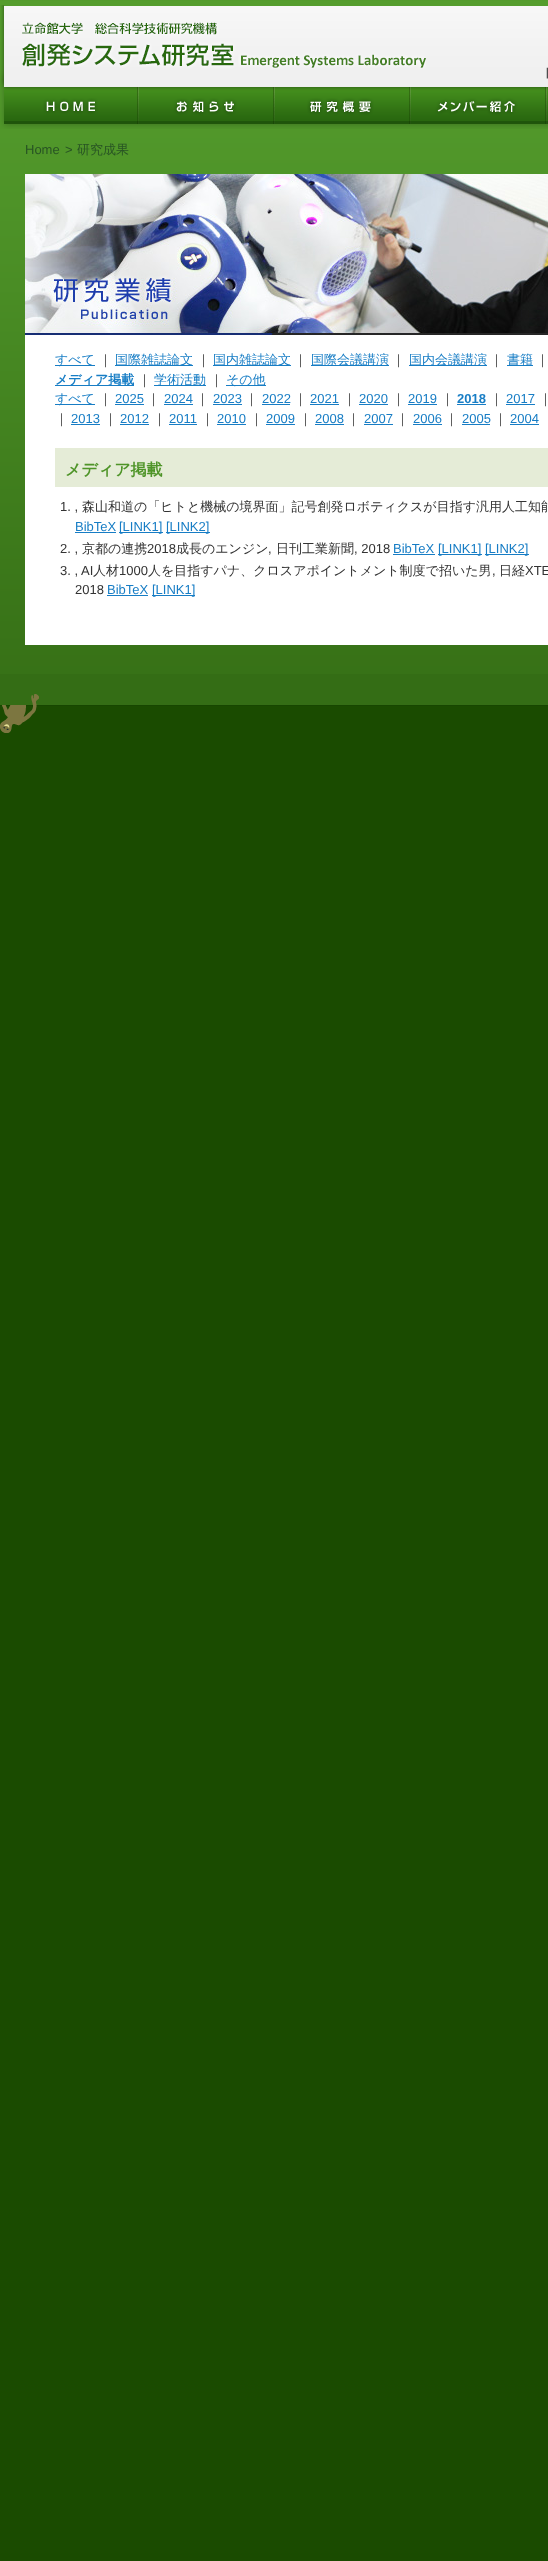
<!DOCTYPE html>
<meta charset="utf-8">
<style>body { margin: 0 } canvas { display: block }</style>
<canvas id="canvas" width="548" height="2561"></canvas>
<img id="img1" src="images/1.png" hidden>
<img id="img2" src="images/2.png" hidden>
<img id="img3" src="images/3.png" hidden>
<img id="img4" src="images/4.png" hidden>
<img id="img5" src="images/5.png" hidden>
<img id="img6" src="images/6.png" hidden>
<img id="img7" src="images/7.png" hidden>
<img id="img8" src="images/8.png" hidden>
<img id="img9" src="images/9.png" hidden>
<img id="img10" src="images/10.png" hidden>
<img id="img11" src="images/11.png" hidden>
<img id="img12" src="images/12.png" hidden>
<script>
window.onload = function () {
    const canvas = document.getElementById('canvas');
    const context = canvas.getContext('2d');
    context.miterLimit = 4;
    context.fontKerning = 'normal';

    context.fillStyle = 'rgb(26, 75, 0)';
    context.fillRect(0, 0, 548, 2561);
    context.fillStyle = 'rgb(52, 109, 21)';
    context.fillRect(0, 674, 548, 31);
    context.drawImage(document.getElementById('img1'), 0, 0, 548, 674);
    context.drawImage(document.getElementById('img2'), 0, 5, 548, 124);
    context.drawImage(document.getElementById('img3'), 4, 6, 544, 81);
    context.drawImage(document.getElementById('img4'), 22, 22, 404, 47);
    context.drawImage(document.getElementById('img5'), 546, 67, 2, 12);
    context.drawImage(document.getElementById('img6'), 4, 87, 134, 37);
    context.drawImage(document.getElementById('img7'), 138, 87, 136, 37);
    context.drawImage(document.getElementById('img8'), 274, 87, 136, 37);
    context.drawImage(document.getElementById('img9'), 410, 87, 136, 37);
    context.drawImage(document.getElementById('img10'), 546, 87, 2, 37);
    context.drawImage(document.getElementById('img11'), 25, 174, 523, 161);
    context.fillStyle = 'rgb(255, 255, 255)';
    context.fillRect(25, 335, 523, 310);
    context.fillStyle = 'rgb(23, 125, 197)';
    context.fillRect(55, 365, 40, 1);
    context.fillRect(115, 365, 78, 1);
    context.fillRect(213, 365, 78, 1);
    context.fillRect(311, 365, 78, 1);
    context.fillRect(409, 365, 78, 1);
    context.fillRect(507, 365, 26, 1);
    context.fillRect(55, 385, 79, 1);
    context.fillRect(154, 385, 52, 1);
    context.fillRect(226, 385, 40, 1);
    context.fillRect(55, 404, 40, 1);
    context.fillRect(115, 404, 29, 1);
    context.fillRect(164, 404, 29, 1);
    context.fillRect(213, 404, 29, 1);
    context.fillRect(262, 404, 28, 1);
    context.fillRect(310, 404, 29, 1);
    context.fillRect(359, 404, 29, 1);
    context.fillRect(408, 404, 29, 1);
    context.fillRect(457, 404, 29, 1);
    context.fillRect(506, 404, 29, 1);
    context.fillRect(71, 424, 29, 1);
    context.fillRect(120, 424, 29, 1);
    context.fillRect(169, 424, 28, 1);
    context.fillRect(217, 424, 29, 1);
    context.fillRect(266, 424, 29, 1);
    context.fillRect(315, 424, 29, 1);
    context.fillRect(364, 424, 29, 1);
    context.fillRect(413, 424, 29, 1);
    context.fillRect(462, 424, 28, 1);
    context.fillRect(510, 424, 29, 1);
    context.fillStyle = 'rgb(229, 236, 215)';
    context.fillRect(55, 448, 493, 39);
    context.fillStyle = 'rgb(23, 125, 197)';
    context.fillRect(75, 532, 41, 1);
    context.fillRect(119, 532, 44, 1);
    context.fillRect(166, 532, 44, 1);
    context.fillRect(393, 554, 42, 1);
    context.fillRect(438, 554, 44, 1);
    context.fillRect(485, 554, 44, 1);
    context.fillRect(107, 595, 41, 1);
    context.fillRect(152, 595, 43, 1);
    context.fillStyle = 'rgb(23, 70, 0)';
    context.fillRect(0, 705, 548, 1);
    context.drawImage(document.getElementById('img12'), 0, 694, 39, 39);
    context.font = '13px Liberation Sans';
    context.fillStyle = 'rgb(40, 84, 36)';
    context.fillText('Home', 25, 154);
    context.fillText('>', 65, 154);
    context.font = '500 13px WenQuanYi Zen Hei';
    context.fillText('研究成果', 77, 154);
    context.fillStyle = 'rgb(23, 125, 197)';
    context.fillText('すべて', 55, 364);
    context.fillStyle = 'rgb(51, 51, 51)';
    context.fillText('｜', 99, 364);
    context.fillStyle = 'rgb(23, 125, 197)';
    context.fillText('国際雑誌論文', 115, 364);
    context.fillStyle = 'rgb(51, 51, 51)';
    context.fillText('｜', 197, 364);
    context.fillStyle = 'rgb(23, 125, 197)';
    context.fillText('国内雑誌論文', 213, 364);
    context.fillStyle = 'rgb(51, 51, 51)';
    context.fillText('｜', 294, 364);
    context.fillStyle = 'rgb(23, 125, 197)';
    context.fillText('国際会議講演', 311, 364);
    context.fillStyle = 'rgb(51, 51, 51)';
    context.fillText('｜', 392, 364);
    context.fillStyle = 'rgb(23, 125, 197)';
    context.fillText('国内会議講演', 409, 364);
    context.fillStyle = 'rgb(51, 51, 51)';
    context.fillText('｜', 490, 364);
    context.fillStyle = 'rgb(23, 125, 197)';
    context.fillText('書籍', 507, 364);
    context.fillStyle = 'rgb(51, 51, 51)';
    context.fillText('｜', 536, 364);
    context.font = 'bold 13px WenQuanYi Zen Hei';
    context.fillStyle = 'rgb(23, 125, 197)';
    context.fillText('メディア掲載', 55, 384);
    context.font = '500 13px WenQuanYi Zen Hei';
    context.fillStyle = 'rgb(51, 51, 51)';
    context.fillText('｜', 138, 384);
    context.fillStyle = 'rgb(23, 125, 197)';
    context.fillText('学術活動', 154, 384);
    context.fillStyle = 'rgb(51, 51, 51)';
    context.fillText('｜', 210, 384);
    context.fillStyle = 'rgb(23, 125, 197)';
    context.fillText('その他', 226, 384);
    context.fillText('すべて', 55, 403);
    context.fillStyle = 'rgb(51, 51, 51)';
    context.fillText('｜', 99, 403);
    context.font = '13px Liberation Sans';
    context.fillStyle = 'rgb(23, 125, 197)';
    context.fillText('2025', 115, 403);
    context.font = '500 13px WenQuanYi Zen Hei';
    context.fillStyle = 'rgb(51, 51, 51)';
    context.fillText('｜', 147, 403);
    context.font = '13px Liberation Sans';
    context.fillStyle = 'rgb(23, 125, 197)';
    context.fillText('2024', 164, 403);
    context.font = '500 13px WenQuanYi Zen Hei';
    context.fillStyle = 'rgb(51, 51, 51)';
    context.fillText('｜', 196, 403);
    context.font = '13px Liberation Sans';
    context.fillStyle = 'rgb(23, 125, 197)';
    context.fillText('2023', 213, 403);
    context.font = '500 13px WenQuanYi Zen Hei';
    context.fillStyle = 'rgb(51, 51, 51)';
    context.fillText('｜', 245, 403);
    context.font = '13px Liberation Sans';
    context.fillStyle = 'rgb(23, 125, 197)';
    context.fillText('2022', 262, 403);
    context.font = '500 13px WenQuanYi Zen Hei';
    context.fillStyle = 'rgb(51, 51, 51)';
    context.fillText('｜', 294, 403);
    context.font = '13px Liberation Sans';
    context.fillStyle = 'rgb(23, 125, 197)';
    context.fillText('2021', 310, 403);
    context.font = '500 13px WenQuanYi Zen Hei';
    context.fillStyle = 'rgb(51, 51, 51)';
    context.fillText('｜', 343, 403);
    context.font = '13px Liberation Sans';
    context.fillStyle = 'rgb(23, 125, 197)';
    context.fillText('2020', 359, 403);
    context.font = '500 13px WenQuanYi Zen Hei';
    context.fillStyle = 'rgb(51, 51, 51)';
    context.fillText('｜', 392, 403);
    context.font = '13px Liberation Sans';
    context.fillStyle = 'rgb(23, 125, 197)';
    context.fillText('2019', 408, 403);
    context.font = '500 13px WenQuanYi Zen Hei';
    context.fillStyle = 'rgb(51, 51, 51)';
    context.fillText('｜', 441, 403);
    context.font = 'bold 13px Liberation Sans';
    context.fillStyle = 'rgb(23, 125, 197)';
    context.fillText('2018', 457, 403);
    context.font = '500 13px WenQuanYi Zen Hei';
    context.fillStyle = 'rgb(51, 51, 51)';
    context.fillText('｜', 490, 403);
    context.font = '13px Liberation Sans';
    context.fillStyle = 'rgb(23, 125, 197)';
    context.fillText('2017', 506, 403);
    context.font = '500 13px WenQuanYi Zen Hei';
    context.fillStyle = 'rgb(51, 51, 51)';
    context.fillText('｜', 539, 403);
    context.fillText('｜', 55, 423);
    context.font = '13px Liberation Sans';
    context.fillStyle = 'rgb(23, 125, 197)';
    context.fillText('2013', 71, 423);
    context.font = '500 13px WenQuanYi Zen Hei';
    context.fillStyle = 'rgb(51, 51, 51)';
    context.fillText('｜', 104, 423);
    context.font = '13px Liberation Sans';
    context.fillStyle = 'rgb(23, 125, 197)';
    context.fillText('2012', 120, 423);
    context.font = '500 13px WenQuanYi Zen Hei';
    context.fillStyle = 'rgb(51, 51, 51)';
    context.fillText('｜', 153, 423);
    context.font = '13px Liberation Sans';
    context.fillStyle = 'rgb(23, 125, 197)';
    context.fillText('2011', 169, 423);
    context.font = '500 13px WenQuanYi Zen Hei';
    context.fillStyle = 'rgb(51, 51, 51)';
    context.fillText('｜', 201, 423);
    context.font = '13px Liberation Sans';
    context.fillStyle = 'rgb(23, 125, 197)';
    context.fillText('2010', 217, 423);
    context.font = '500 13px WenQuanYi Zen Hei';
    context.fillStyle = 'rgb(51, 51, 51)';
    context.fillText('｜', 250, 423);
    context.font = '13px Liberation Sans';
    context.fillStyle = 'rgb(23, 125, 197)';
    context.fillText('2009', 266, 423);
    context.font = '500 13px WenQuanYi Zen Hei';
    context.fillStyle = 'rgb(51, 51, 51)';
    context.fillText('｜', 299, 423);
    context.font = '13px Liberation Sans';
    context.fillStyle = 'rgb(23, 125, 197)';
    context.fillText('2008', 315, 423);
    context.font = '500 13px WenQuanYi Zen Hei';
    context.fillStyle = 'rgb(51, 51, 51)';
    context.fillText('｜', 347, 423);
    context.font = '13px Liberation Sans';
    context.fillStyle = 'rgb(23, 125, 197)';
    context.fillText('2007', 364, 423);
    context.font = '500 13px WenQuanYi Zen Hei';
    context.fillStyle = 'rgb(51, 51, 51)';
    context.fillText('｜', 396, 423);
    context.font = '13px Liberation Sans';
    context.fillStyle = 'rgb(23, 125, 197)';
    context.fillText('2006', 413, 423);
    context.font = '500 13px WenQuanYi Zen Hei';
    context.fillStyle = 'rgb(51, 51, 51)';
    context.fillText('｜', 445, 423);
    context.font = '13px Liberation Sans';
    context.fillStyle = 'rgb(23, 125, 197)';
    context.fillText('2005', 462, 423);
    context.font = '500 13px WenQuanYi Zen Hei';
    context.fillStyle = 'rgb(51, 51, 51)';
    context.fillText('｜', 494, 423);
    context.font = '13px Liberation Sans';
    context.fillStyle = 'rgb(23, 125, 197)';
    context.fillText('2004', 510, 423);
    context.font = 'bold 16px WenQuanYi Zen Hei';
    context.fillStyle = 'rgb(78, 148, 40)';
    context.fillText('メディア掲載', 65, 475);
    context.font = '13px Liberation Sans';
    context.fillStyle = 'rgb(51, 51, 51)';
    context.fillText('1. ,', 60, 511);
    context.font = '500 13px WenQuanYi Zen Hei';
    context.fillText('森山和道の「ヒトと機械の境界面」記号創発ロボティクスが目指す汎用人工知能', 82, 511);
    context.font = '13px Liberation Sans';
    context.fillStyle = 'rgb(23, 125, 197)';
    context.fillText('BibTeX', 75, 531);
    context.fillText('[LINK1]', 119, 531);
    context.fillText('[LINK2]', 166, 531);
    context.fillStyle = 'rgb(51, 51, 51)';
    context.fillText('2. ,', 60, 553);
    context.font = '500 13px WenQuanYi Zen Hei';
    context.fillText('京都の連携', 82, 553);
    context.font = '13px Liberation Sans';
    context.fillText('2018', 147, 553);
    context.font = '500 13px WenQuanYi Zen Hei';
    context.fillText('成長のエンジン', 176, 553);
    context.font = '13px Liberation Sans';
    context.fillText(',', 268, 553);
    context.font = '500 13px WenQuanYi Zen Hei';
    context.fillText('日刊工業新聞', 276, 553);
    context.font = '13px Liberation Sans';
    context.fillText(', 2018', 354, 553);
    context.fillStyle = 'rgb(23, 125, 197)';
    context.fillText('BibTeX', 393, 553);
    context.fillText('[LINK1]', 438, 553);
    context.fillText('[LINK2]', 485, 553);
    context.fillStyle = 'rgb(51, 51, 51)';
    context.fillText('3. , AI', 60, 575);
    context.font = '500 13px WenQuanYi Zen Hei';
    context.fillText('人材', 93, 575);
    context.font = '13px Liberation Sans';
    context.fillText('1000', 119, 575);
    context.font = '500 13px WenQuanYi Zen Hei';
    context.fillText('人を目指すパナ、クロスアポイントメント制度で招いた男', 148, 575);
    context.font = '13px Liberation Sans';
    context.fillText(',', 492, 575);
    context.font = '500 13px WenQuanYi Zen Hei';
    context.fillText('日経', 499, 575);
    context.font = '13px Liberation Sans';
    context.fillText('XTE', 525, 575);
    context.fillText('2018', 75, 594);
    context.fillStyle = 'rgb(23, 125, 197)';
    context.fillText('BibTeX', 107, 594);
    context.fillText('[LINK1]', 152, 594);
};
</script>
